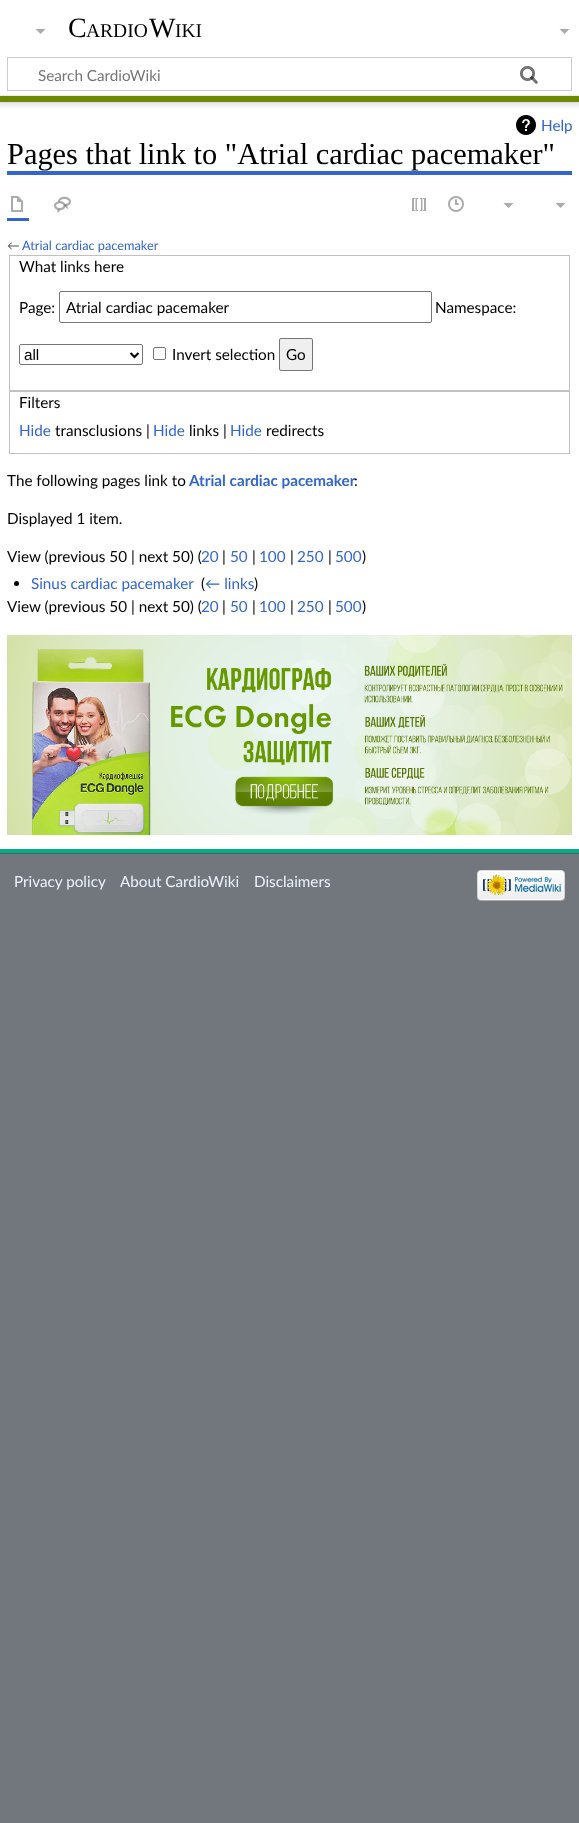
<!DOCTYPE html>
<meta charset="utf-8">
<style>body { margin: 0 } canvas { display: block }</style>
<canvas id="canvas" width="579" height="1823"></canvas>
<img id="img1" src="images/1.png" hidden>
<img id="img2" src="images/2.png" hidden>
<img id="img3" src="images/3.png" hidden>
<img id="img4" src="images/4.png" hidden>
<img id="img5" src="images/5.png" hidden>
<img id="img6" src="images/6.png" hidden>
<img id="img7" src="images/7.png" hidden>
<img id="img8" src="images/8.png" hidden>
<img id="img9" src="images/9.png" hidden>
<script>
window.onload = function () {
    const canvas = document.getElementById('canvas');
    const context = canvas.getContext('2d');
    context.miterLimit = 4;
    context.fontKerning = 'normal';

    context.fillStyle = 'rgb(114, 119, 125)';
    context.fillRect(0, 0, 579, 1823);
    context.fillStyle = 'rgb(255, 255, 255)';
    context.fillRect(0, 0, 579, 96);
    context.fillStyle = 'rgb(171, 171, 171)';
    context.beginPath();
    context.moveTo(569.5, 29);
    context.lineTo(564.5, 34);
    context.lineTo(559.5, 29);
    context.closePath();
    context.fill();
    context.strokeStyle = 'rgb(200, 204, 209)';
    context.strokeRect(7.5, 57.5, 564, 33);
    context.drawImage(document.getElementById('img1'), 520, 66, 18, 18);
    context.drawImage(document.getElementById('img2'), 520, 66, 18, 18);
    context.fillStyle = 'rgb(255, 255, 255)';
    context.fillRect(0, 102, 579, 747);
    context.fillStyle = 'rgba(0, 0, 0, 0.2)';
    context.filter = 'blur(1px)';
    context.beginPath();
    context.rect(0, 96, 579, 6);
    context.fill();
    context.filter = 'none';
    context.fillStyle = 'rgba(0, 0, 0, 0.07)';
    context.filter = 'blur(1.5px)';
    context.beginPath();
    context.rect(-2, 97, 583, 10);
    context.fill();
    context.filter = 'none';
    context.fillStyle = 'rgb(107, 138, 1)';
    context.fillRect(0, 96, 579, 6);
    context.fillStyle = 'rgb(0, 175, 137)';
    context.fillRect(0, 849, 579, 4);
    context.fillStyle = 'rgb(171, 171, 171)';
    context.beginPath();
    context.moveTo(45.5, 29);
    context.lineTo(40.5, 34);
    context.lineTo(35.5, 29);
    context.closePath();
    context.fill();
    context.drawImage(document.getElementById('img3'), 516, 115, 20, 20);
    context.fillStyle = 'rgb(51, 102, 204)';
    context.fillRect(7, 171, 565, 4);
    context.fillRect(7, 218, 22, 3);
    context.drawImage(document.getElementById('img4'), 11, 196, 12, 16);
    context.drawImage(document.getElementById('img5'), 54, 196, 17, 17);
    context.drawImage(document.getElementById('img6'), 412, 198, 14, 13);
    context.drawImage(document.getElementById('img7'), 448, 196, 16, 16);
    context.fillStyle = 'rgb(171, 171, 171)';
    context.beginPath();
    context.moveTo(513.5, 203);
    context.lineTo(508.5, 208);
    context.lineTo(503.5, 203);
    context.closePath();
    context.moveTo(565.5, 203);
    context.lineTo(560.5, 208);
    context.lineTo(555.5, 203);
    context.closePath();
    context.fill();
    context.strokeStyle = 'rgb(192, 192, 192)';
    context.strokeRect(9.5, 255.5, 560, 135);
    context.beginPath();
    context.roundRect(59.5, 291.5, 372, 31, 1.5);
    context.strokeStyle = 'rgb(118, 118, 118)';
    context.stroke();
    context.beginPath();
    context.roundRect(19.5, 344.5, 123, 20, 1.5);
    context.stroke();
    context.beginPath();
    context.moveTo(130.5, 353);
    context.lineTo(134.5, 357);
    context.lineTo(138.5, 353);
    context.strokeStyle = 'rgb(0, 0, 0)';
    context.lineWidth = 2;
    context.stroke();
    context.beginPath();
    context.roundRect(153.5, 347.5, 12, 12, 1.5);
    context.strokeStyle = 'rgb(118, 118, 118)';
    context.lineWidth = 1;
    context.stroke();
    context.fillStyle = 'rgb(239, 239, 239)';
    context.beginPath();
    context.roundRect(279.5, 338.5, 33, 32, 1.5);
    context.fill();
    context.stroke();
    context.strokeStyle = 'rgb(192, 192, 192)';
    context.strokeRect(9.5, 391.5, 560, 62);
    context.fillStyle = 'rgb(0, 0, 0)';
    context.beginPath();
    context.arc(16.5, 583.5, 2.5, 0, 2 * Math.PI);
    context.fill();
    context.drawImage(document.getElementById('img8'), 7, 635, 565, 200);
    context.fillStyle = 'rgb(84, 89, 93)';
    context.fillRect(0, 853, 579, 1);
    context.drawImage(document.getElementById('img9'), 477, 870, 88, 31);
    context.font = '28px Liberation Serif';
    context.fillStyle = 'rgb(0, 0, 0)';
    context.fillText('C', 68, 37);
    context.font = '19.5px Liberation Serif';
    context.fillText('ARDIO', 86, 37);
    context.font = '28px Liberation Serif';
    context.fillText('W', 149, 37);
    context.font = '19.5px Liberation Serif';
    context.fillText('IKI', 175, 37);
    context.font = '15.25px Lato';
    context.fillStyle = 'rgb(117, 117, 117)';
    context.fillText('Search CardioWiki', 38, 81);
    context.fillStyle = 'rgb(51, 102, 204)';
    context.fillText('Help', 541, 131);
    context.font = '30.4px Liberation Serif';
    context.fillStyle = 'rgb(0, 0, 0)';
    context.fillText('Pages that link to "Atrial cardiac pacemaker"', 7, 164);
    context.font = '12.75px Lato';
    context.fillStyle = 'rgb(84, 89, 93)';
    context.fillText('←', 7, 250);
    context.fillStyle = 'rgb(51, 102, 204)';
    context.fillText('Atrial cardiac pacemaker', 22, 250);
    context.font = '15.25px Lato';
    context.fillStyle = 'rgb(0, 0, 0)';
    context.fillText('What links here', 19, 272);
    context.fillText('Page:', 19, 313);
    context.fillText('Atrial cardiac pacemaker', 66, 313);
    context.fillText('Namespace:', 435, 313);
    context.font = '15.25px Liberation Sans';
    context.fillText('all', 24, 360);
    context.font = '15.25px Lato';
    context.fillText('Invert selection', 172, 360);
    context.fillText('Go', 286, 360);
    context.fillText('Filters', 19, 408);
    context.fillStyle = 'rgb(51, 102, 204)';
    context.fillText('Hide', 19, 436);
    context.fillStyle = 'rgb(0, 0, 0)';
    context.fillText('transclusions |', 55, 436);
    context.fillStyle = 'rgb(51, 102, 204)';
    context.fillText('Hide', 153, 436);
    context.fillStyle = 'rgb(0, 0, 0)';
    context.fillText('links |', 189, 436);
    context.fillStyle = 'rgb(51, 102, 204)';
    context.fillText('Hide', 230, 436);
    context.fillStyle = 'rgb(0, 0, 0)';
    context.fillText('redirects', 266, 436);
    context.fillText('The following pages link to', 7, 486);
    context.font = 'bold 15.25px Lato';
    context.fillStyle = 'rgb(51, 102, 204)';
    context.fillText('Atrial cardiac pacemaker', 189, 486);
    context.font = '15.25px Lato';
    context.fillStyle = 'rgb(0, 0, 0)';
    context.fillText(':', 354, 486);
    context.fillText('Displayed 1 item.', 7, 524);
    context.fillText('View (previous 50 | next 50) (', 7, 562);
    context.fillStyle = 'rgb(51, 102, 204)';
    context.fillText('20', 201, 562);
    context.fillStyle = 'rgb(0, 0, 0)';
    context.fillText('|', 222, 562);
    context.fillStyle = 'rgb(51, 102, 204)';
    context.fillText('50', 230, 562);
    context.fillStyle = 'rgb(0, 0, 0)';
    context.fillText('|', 252, 562);
    context.fillStyle = 'rgb(51, 102, 204)';
    context.fillText('100', 259, 562);
    context.fillStyle = 'rgb(0, 0, 0)';
    context.fillText('|', 290, 562);
    context.fillStyle = 'rgb(51, 102, 204)';
    context.fillText('250', 297, 562);
    context.fillStyle = 'rgb(0, 0, 0)';
    context.fillText('|', 328, 562);
    context.fillStyle = 'rgb(51, 102, 204)';
    context.fillText('500', 335, 562);
    context.fillStyle = 'rgb(0, 0, 0)';
    context.fillText(')', 362, 562);
    context.fillStyle = 'rgb(51, 102, 204)';
    context.fillText('Sinus cardiac pacemaker', 31, 589);
    context.fillStyle = 'rgb(0, 0, 0)';
    context.fillText('(', 201, 589);
    context.fillStyle = 'rgb(51, 102, 204)';
    context.fillText('← links', 205, 589);
    context.fillStyle = 'rgb(0, 0, 0)';
    context.fillText(')', 254, 589);
    context.fillText('View (previous 50 | next 50) (', 7, 612);
    context.fillStyle = 'rgb(51, 102, 204)';
    context.fillText('20', 201, 612);
    context.fillStyle = 'rgb(0, 0, 0)';
    context.fillText('|', 222, 612);
    context.fillStyle = 'rgb(51, 102, 204)';
    context.fillText('50', 230, 612);
    context.fillStyle = 'rgb(0, 0, 0)';
    context.fillText('|', 252, 612);
    context.fillStyle = 'rgb(51, 102, 204)';
    context.fillText('100', 259, 612);
    context.fillStyle = 'rgb(0, 0, 0)';
    context.fillText('|', 290, 612);
    context.fillStyle = 'rgb(51, 102, 204)';
    context.fillText('250', 297, 612);
    context.fillStyle = 'rgb(0, 0, 0)';
    context.fillText('|', 328, 612);
    context.fillStyle = 'rgb(51, 102, 204)';
    context.fillText('500', 335, 612);
    context.fillStyle = 'rgb(0, 0, 0)';
    context.fillText(')', 362, 612);
    context.fillStyle = 'rgb(234, 243, 255)';
    context.fillText('Privacy policy', 14, 887);
    context.fillText('About CardioWiki', 120, 887);
    context.fillText('Disclaimers', 254, 887);
};
</script>
